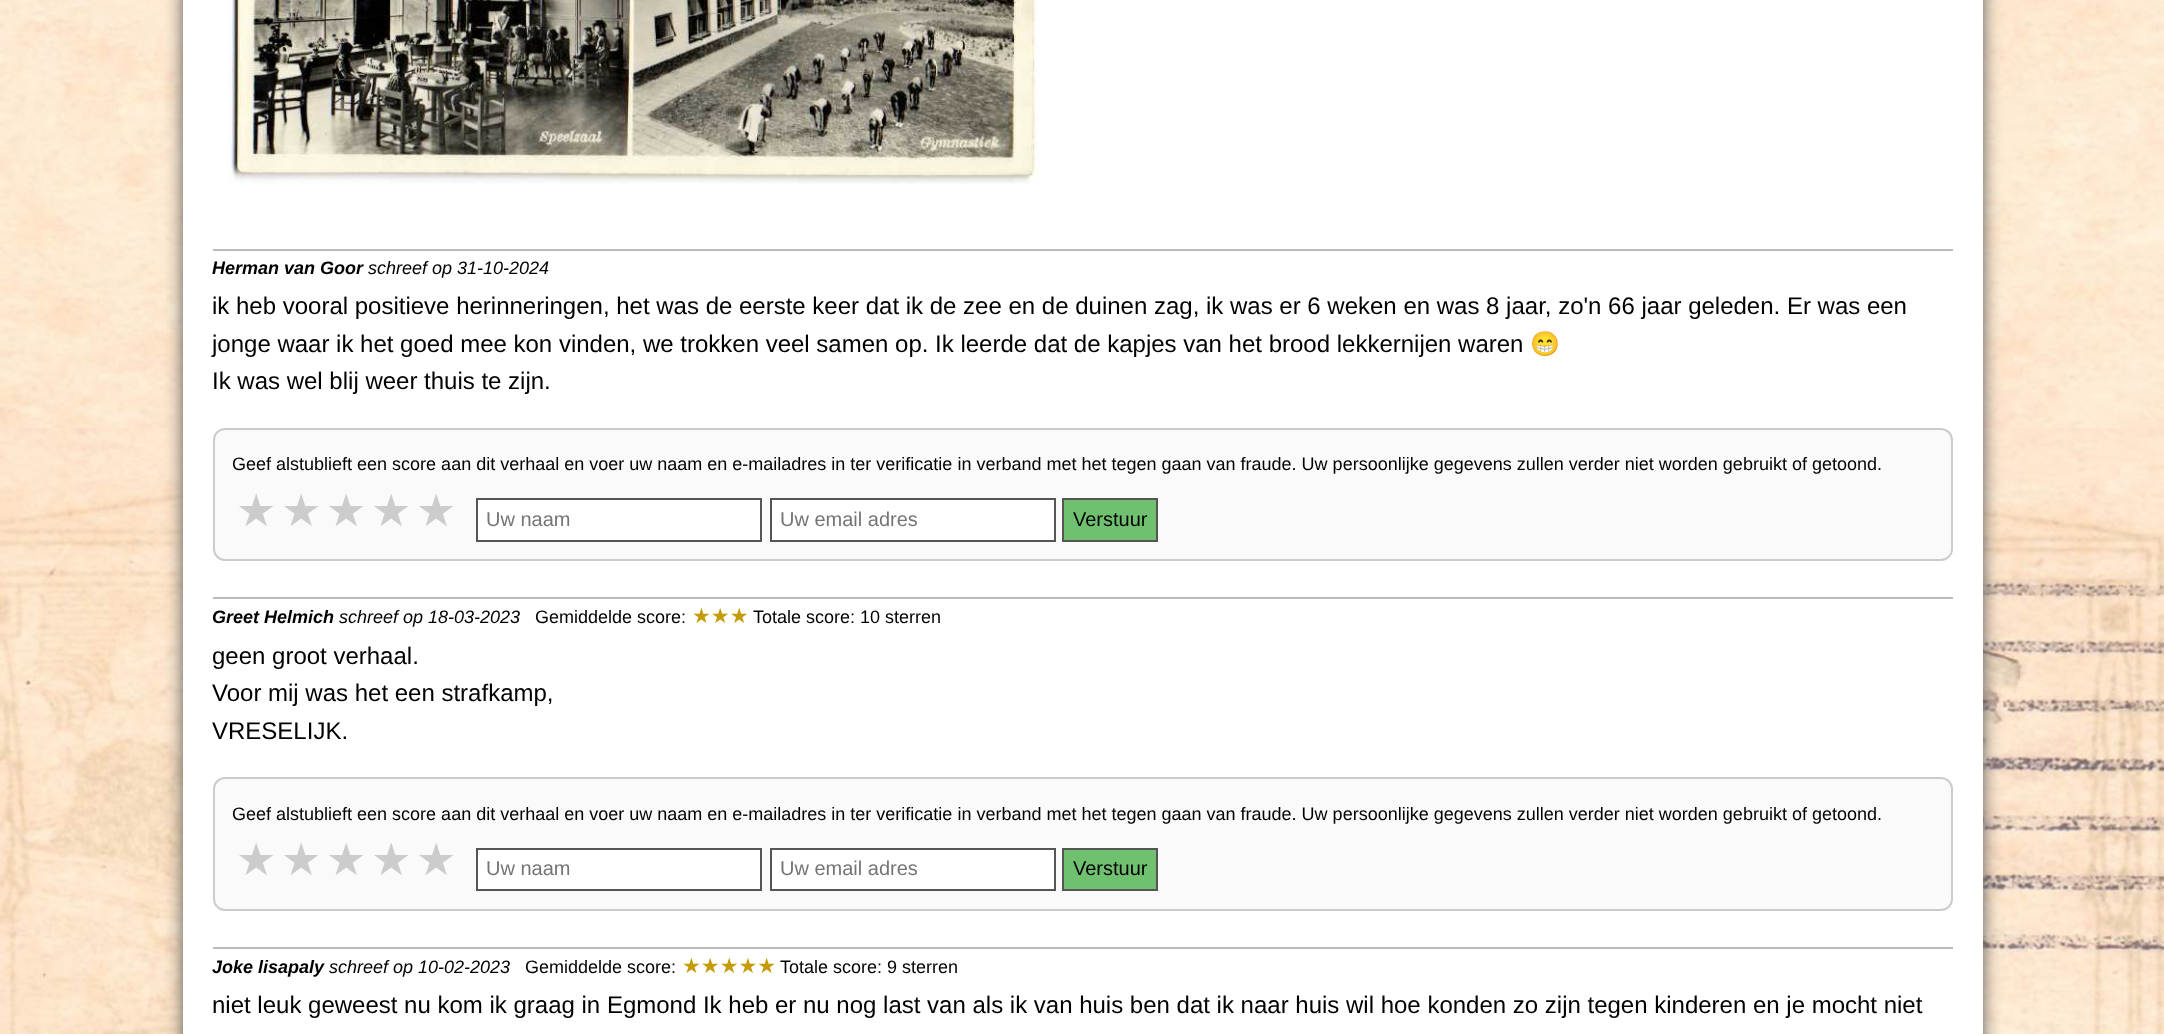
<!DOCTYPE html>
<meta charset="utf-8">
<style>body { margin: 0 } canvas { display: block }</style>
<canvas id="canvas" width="2164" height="1034"></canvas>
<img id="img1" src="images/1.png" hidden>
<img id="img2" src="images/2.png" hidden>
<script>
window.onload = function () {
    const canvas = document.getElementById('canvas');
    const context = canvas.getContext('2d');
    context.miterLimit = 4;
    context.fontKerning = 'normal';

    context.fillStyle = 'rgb(255, 255, 255)';
    context.fillRect(0, 0, 2164, 1034);
    context.drawImage(document.getElementById('img1'), 0, 0, 2164, 1034);
    context.fillStyle = 'rgb(85, 85, 85)';
    context.filter = 'blur(9px)';
    context.beginPath();
    context.rect(183, -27, 1800, 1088);
    context.fill();
    context.filter = 'none';
    context.fillStyle = 'rgb(255, 255, 255)';
    context.fillRect(183, 0, 1800, 1034);
    context.drawImage(document.getElementById('img2'), 228, 0, 811, 184);
    context.fillStyle = 'rgb(187, 187, 187)';
    context.fillRect(213, 249, 1740, 2);
    context.fillStyle = 'rgb(250, 250, 250)';
    context.beginPath();
    context.roundRect(214, 429, 1738, 131, 11);
    context.fill();
    context.strokeStyle = 'rgb(204, 204, 204)';
    context.lineWidth = 2;
    context.stroke();
    context.fillStyle = 'rgb(255, 255, 255)';
    context.beginPath();
    context.rect(477, 499, 284, 42);
    context.fill();
    context.strokeStyle = 'rgb(85, 85, 85)';
    context.stroke();
    context.beginPath();
    context.rect(771, 499, 284, 42);
    context.fill();
    context.stroke();
    context.fillStyle = 'rgb(111, 193, 111)';
    context.beginPath();
    context.rect(1063, 499, 94, 42);
    context.fill();
    context.stroke();
    context.fillStyle = 'rgb(187, 187, 187)';
    context.fillRect(213, 597, 1740, 2);
    context.fillStyle = 'rgb(250, 250, 250)';
    context.beginPath();
    context.roundRect(214, 778, 1738, 132, 11);
    context.fill();
    context.strokeStyle = 'rgb(204, 204, 204)';
    context.stroke();
    context.fillStyle = 'rgb(255, 255, 255)';
    context.beginPath();
    context.rect(477, 849, 284, 41);
    context.fill();
    context.strokeStyle = 'rgb(85, 85, 85)';
    context.stroke();
    context.beginPath();
    context.rect(771, 849, 284, 41);
    context.fill();
    context.stroke();
    context.fillStyle = 'rgb(111, 193, 111)';
    context.beginPath();
    context.rect(1063, 849, 94, 41);
    context.fill();
    context.stroke();
    context.fillStyle = 'rgb(187, 187, 187)';
    context.fillRect(213, 947, 1740, 2);
    context.font = 'italic bold 18px Liberation Sans';
    context.fillStyle = 'rgb(0, 0, 0)';
    context.fillText('Herman van Goor', 212, 274);
    context.font = 'italic 18px Liberation Sans';
    context.fillText('schreef op 31-10-2024', 368, 274);
    context.font = '24px Liberation Sans';
    context.fillText('ik heb vooral positieve herinneringen, het was de eerste keer dat ik de zee en de duinen zag, ik was er 6 weken en was 8 jaar, zo\'n 66 jaar geleden. Er was een', 212, 314);
    context.fillText('jonge waar ik het goed mee kon vinden, we trokken veel samen op. Ik leerde dat de kapjes van het brood lekkernijen waren', 212, 352);
    context.font = '24px Noto Color Emoji';
    context.fillText('😁', 1530, 352);
    context.font = '24px Liberation Sans';
    context.fillText('Ik was wel blij weer thuis te zijn.', 212, 389);
    context.font = '18px Liberation Sans';
    context.fillText('Geef alstublieft een score aan dit verhaal en voer uw naam en e-mailadres in ter verificatie in verband met het tegen gaan van fraude. Uw persoonlijke gegevens zullen verder niet worden gebruikt of getoond.', 232, 470);
    context.font = '45px DejaVu Sans';
    context.fillStyle = 'rgb(204, 204, 204)';
    context.fillText('★', 236, 526);
    context.fillText('★', 281, 526);
    context.fillText('★', 326, 526);
    context.fillText('★', 371, 526);
    context.fillText('★', 416, 526);
    context.font = '20px Liberation Sans';
    context.fillStyle = 'rgb(117, 117, 117)';
    context.fillText('Uw naam', 486, 526);
    context.fillText('Uw email adres', 780, 526);
    context.fillStyle = 'rgb(0, 0, 0)';
    context.fillText('Verstuur', 1073, 526);
    context.font = 'italic bold 18px Liberation Sans';
    context.fillText('Greet Helmich', 212, 623);
    context.font = 'italic 18px Liberation Sans';
    context.fillText('schreef op 18-03-2023', 339, 623);
    context.font = '18px Liberation Sans';
    context.fillText('Gemiddelde score:', 535, 623);
    context.font = '21px DejaVu Sans';
    context.fillStyle = 'rgb(197, 155, 8)';
    context.fillText('★★★', 692, 623);
    context.font = '18px Liberation Sans';
    context.fillStyle = 'rgb(0, 0, 0)';
    context.fillText('Totale score: 10 sterren', 753, 623);
    context.font = '24px Liberation Sans';
    context.fillText('geen groot verhaal.', 212, 664);
    context.fillText('Voor mij was het een strafkamp,', 212, 701);
    context.fillText('VRESELIJK.', 212, 739);
    context.font = '18px Liberation Sans';
    context.fillText('Geef alstublieft een score aan dit verhaal en voer uw naam en e-mailadres in ter verificatie in verband met het tegen gaan van fraude. Uw persoonlijke gegevens zullen verder niet worden gebruikt of getoond.', 232, 820);
    context.font = '45px DejaVu Sans';
    context.fillStyle = 'rgb(204, 204, 204)';
    context.fillText('★', 236, 875);
    context.fillText('★', 281, 875);
    context.fillText('★', 326, 875);
    context.fillText('★', 371, 875);
    context.fillText('★', 416, 875);
    context.font = '20px Liberation Sans';
    context.fillStyle = 'rgb(117, 117, 117)';
    context.fillText('Uw naam', 486, 875);
    context.fillText('Uw email adres', 780, 875);
    context.fillStyle = 'rgb(0, 0, 0)';
    context.fillText('Verstuur', 1073, 875);
    context.font = 'italic bold 18px Liberation Sans';
    context.fillText('Joke lisapaly', 212, 973);
    context.font = 'italic 18px Liberation Sans';
    context.fillText('schreef op 10-02-2023', 329, 973);
    context.font = '18px Liberation Sans';
    context.fillText('Gemiddelde score:', 525, 973);
    context.font = '21px DejaVu Sans';
    context.fillStyle = 'rgb(197, 155, 8)';
    context.fillText('★★★★★', 682, 973);
    context.font = '18px Liberation Sans';
    context.fillStyle = 'rgb(0, 0, 0)';
    context.fillText('Totale score: 9 sterren', 780, 973);
    context.font = '24px Liberation Sans';
    context.fillText('niet leuk geweest nu kom ik graag in Egmond Ik heb er nu nog last van als ik van huis ben dat ik naar huis wil hoe konden zo zijn tegen kinderen en je mocht niet', 212, 1013);
};
</script>
